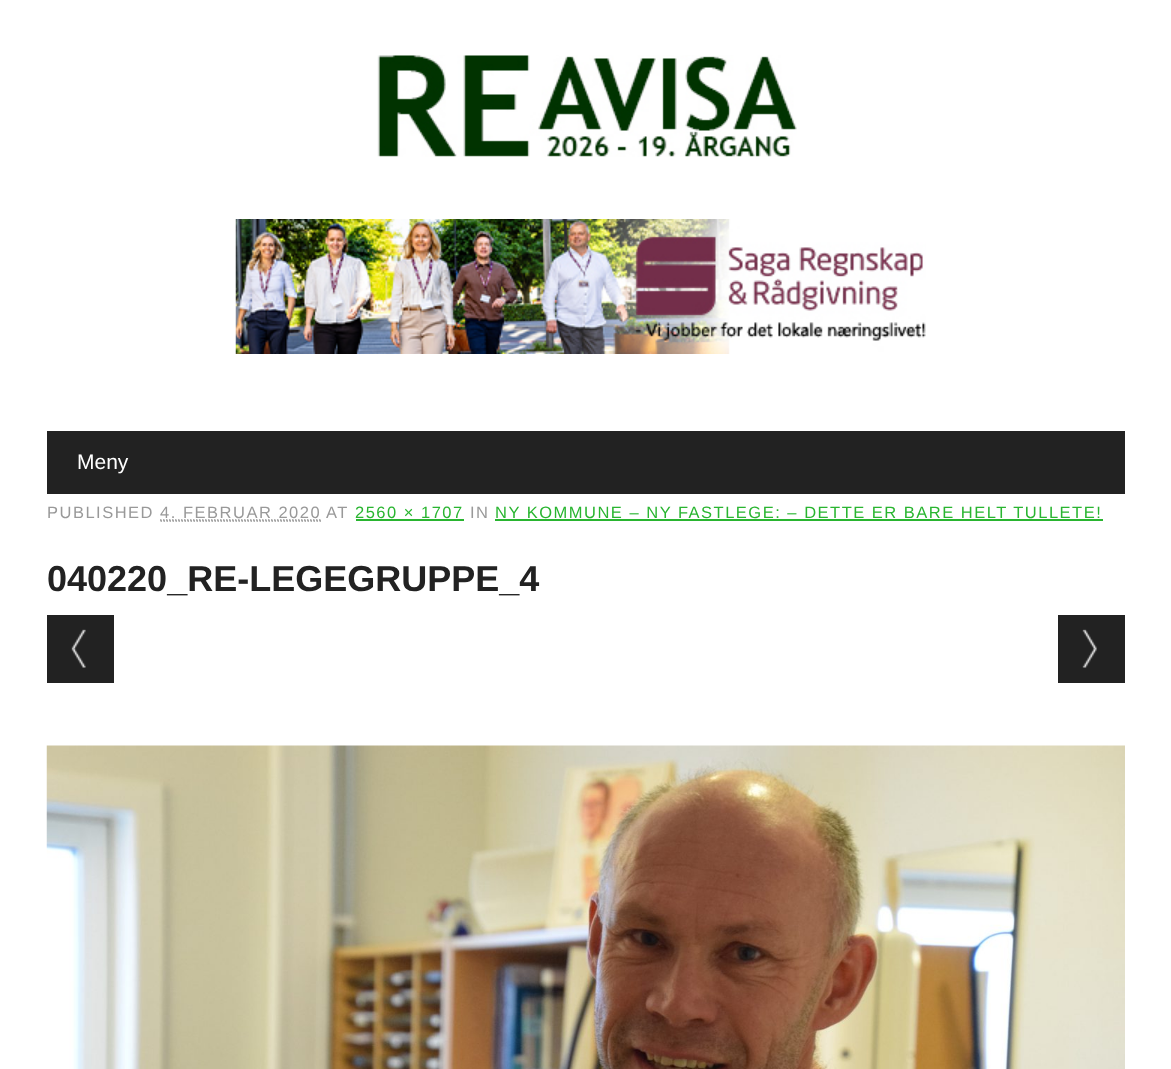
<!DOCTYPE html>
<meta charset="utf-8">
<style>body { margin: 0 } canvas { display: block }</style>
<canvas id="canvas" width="1171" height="1069"></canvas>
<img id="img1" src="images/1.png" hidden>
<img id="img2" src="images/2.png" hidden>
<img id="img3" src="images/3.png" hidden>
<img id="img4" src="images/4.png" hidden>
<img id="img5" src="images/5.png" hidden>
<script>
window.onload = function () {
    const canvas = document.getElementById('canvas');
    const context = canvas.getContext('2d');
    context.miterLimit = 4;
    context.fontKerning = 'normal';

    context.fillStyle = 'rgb(255, 255, 255)';
    context.fillRect(0, 0, 1171, 1069);
    context.drawImage(document.getElementById('img1'), 377, 55, 420, 102);
    context.drawImage(document.getElementById('img2'), 235, 219, 691, 135);
    context.fillStyle = 'rgb(34, 34, 34)';
    context.fillRect(47, 431, 1078, 63);
    context.fillStyle = 'rgb(41, 181, 48)';
    context.fillRect(356, 519, 108, 2);
    context.fillRect(495, 519, 608, 2);
    context.beginPath();
    context.moveTo(160.5, 521);
    context.lineTo(321, 521);
    context.strokeStyle = 'rgb(153, 153, 153)';
    context.lineWidth = 1.5;
    context.setLineDash([1.5, 1.5]);
    context.stroke();
    context.beginPath();
    context.moveTo(160, 520);
    context.lineTo(321, 520);
    context.stroke();
    context.fillStyle = 'rgb(34, 34, 34)';
    context.fillRect(47, 615, 67, 68);
    context.drawImage(document.getElementById('img3'), 71, 629, 15, 39);
    context.fillRect(1058, 615, 67, 68);
    context.drawImage(document.getElementById('img4'), 1082, 629, 15, 39);
    context.drawImage(document.getElementById('img5'), 46, 745, 1079, 324);
    context.font = '21px Liberation Sans';
    context.fillStyle = 'rgb(255, 255, 255)';
    context.fillText('Meny', 77, 469);
    context.letterSpacing = '1.5px';
    context.font = '16.5px Liberation Sans';
    context.fillStyle = 'rgb(153, 153, 153)';
    context.fillText('PUBLISHED 4. FEBRUAR 2020', 47, 518);
    context.fillText('AT', 326, 518);
    context.fillStyle = 'rgb(41, 181, 48)';
    context.fillText('2560 × 1707', 355, 518);
    context.fillStyle = 'rgb(153, 153, 153)';
    context.fillText('IN', 470, 518);
    context.fillStyle = 'rgb(41, 181, 48)';
    context.fillText('NY KOMMUNE – NY FASTLEGE: – DETTE ER BARE HELT TULLETE!', 495, 518);
    context.letterSpacing = '0px';
    context.font = 'bold 36px Liberation Sans';
    context.fillStyle = 'rgb(34, 34, 34)';
    context.fillText('040220_RE-LEGEGRUPPE_4', 47, 591);
};
</script>
